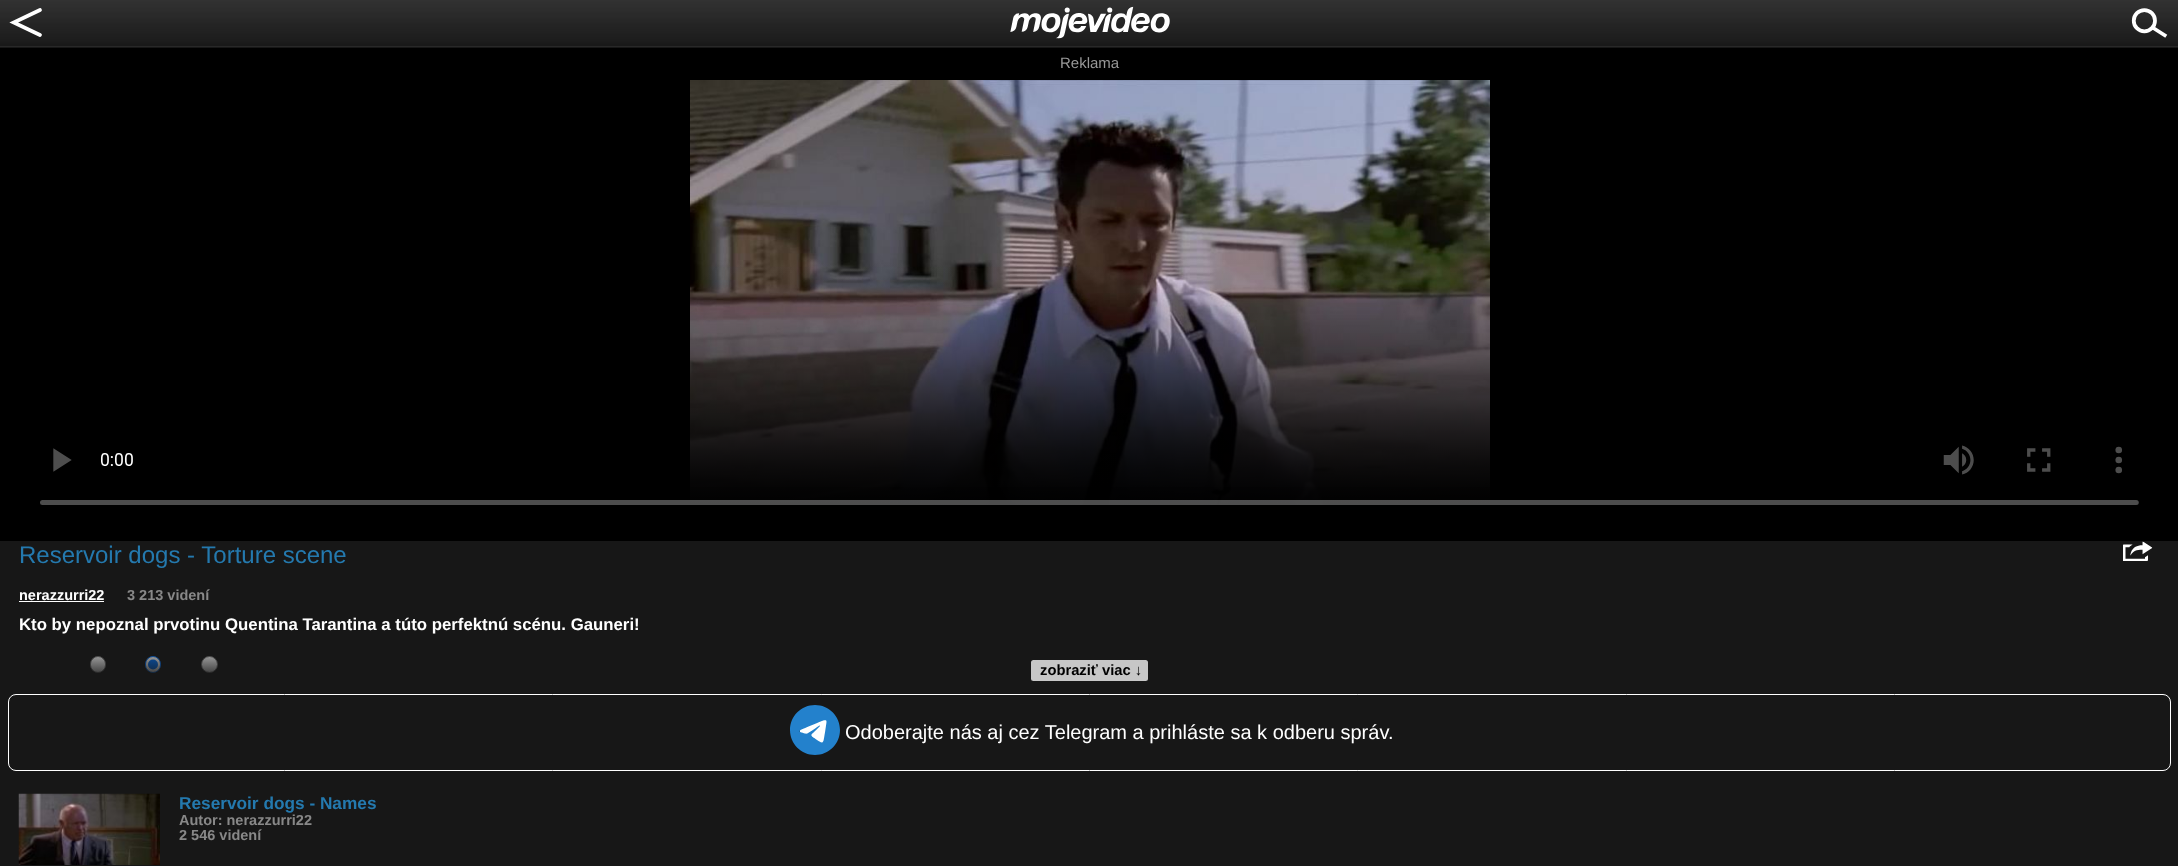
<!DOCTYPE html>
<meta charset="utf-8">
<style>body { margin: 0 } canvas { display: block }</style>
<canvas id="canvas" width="2178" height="866"></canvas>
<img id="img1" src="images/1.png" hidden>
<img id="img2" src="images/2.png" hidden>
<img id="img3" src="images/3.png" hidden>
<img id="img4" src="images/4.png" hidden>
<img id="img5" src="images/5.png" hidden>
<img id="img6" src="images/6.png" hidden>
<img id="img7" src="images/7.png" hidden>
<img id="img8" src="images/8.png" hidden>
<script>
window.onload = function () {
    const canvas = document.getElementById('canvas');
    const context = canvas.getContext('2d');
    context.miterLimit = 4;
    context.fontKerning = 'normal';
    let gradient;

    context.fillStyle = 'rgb(0, 0, 0)';
    context.fillRect(0, 0, 2178, 866);
    context.drawImage(document.getElementById('img1'), 0, 0, 2178, 48);
    context.drawImage(document.getElementById('img2'), 9, 8, 33, 29);
    context.drawImage(document.getElementById('img3'), 1010, 6, 160, 33);
    context.drawImage(document.getElementById('img4'), 2131, 8, 37, 30);
    context.drawImage(document.getElementById('img5'), 40, 80, 2099, 425);
    context.fillStyle = 'rgb(23, 23, 23)';
    context.fillRect(0, 541, 2178, 325);
    context.drawImage(document.getElementById('img6'), 2123, 541, 30, 20);
    context.fillStyle = 'rgb(255, 255, 255)';
    context.fillRect(19, 601, 85, 1);
    context.beginPath();
    context.roundRect(90.5, 656.5, 15, 16, 7.5);
    context.fill();
    context.strokeStyle = 'rgb(118, 118, 118)';
    context.stroke();
    context.beginPath();
    context.roundRect(145.5, 656.5, 15, 16, 7.5);
    context.fill();
    context.strokeStyle = 'rgb(0, 117, 255)';
    context.stroke();
    context.fillStyle = 'rgb(0, 117, 255)';
    context.beginPath();
    context.arc(153, 664.5, 5, 0, 2 * Math.PI);
    context.fill();
    context.fillStyle = 'rgb(255, 255, 255)';
    context.beginPath();
    context.arc(209.5, 664.5, 8, 0, 2 * Math.PI);
    context.fill();
    context.strokeStyle = 'rgb(118, 118, 118)';
    context.stroke();
    gradient = context.createLinearGradient(1089, 637, 1089, 681);
    gradient.addColorStop(0, 'rgba(23, 23, 23, 0)');
    gradient.addColorStop(1, 'rgb(23, 23, 23)');
    context.fillStyle = gradient;
    context.fillRect(90, 656, 128, 17);
    context.fillStyle = 'rgb(199, 199, 199)';
    context.beginPath();
    context.roundRect(1031, 660, 117, 21, 2.5);
    context.fill();
    context.beginPath();
    context.roundRect(8.5, 694.5, 2162, 76, 7.5);
    context.strokeStyle = 'rgb(255, 255, 255)';
    context.stroke();
    context.drawImage(document.getElementById('img7'), 790, 705, 50, 50);
    context.drawImage(document.getElementById('img8'), 18, 793, 142, 72);
    context.font = '15px Liberation Sans';
    context.fillStyle = 'rgb(153, 153, 153)';
    context.fillText('Reklama', 1060, 68);
    context.font = '24px Liberation Sans';
    context.fillStyle = 'rgb(36, 121, 174)';
    context.fillText('Reservoir dogs - Torture scene', 19, 563);
    context.font = 'bold 14.5px Liberation Sans';
    context.fillStyle = 'rgb(255, 255, 255)';
    context.fillText('nerazzurri22', 19, 600);
    context.fillStyle = 'rgb(136, 136, 136)';
    context.fillText('3 213 videní', 127, 600);
    context.font = 'bold 16.8px Liberation Sans';
    context.fillStyle = 'rgb(255, 255, 255)';
    context.fillText('Kto by nepoznal prvotinu Quentina Tarantina a túto perfektnú scénu. Gauneri!', 19, 630);
    context.font = 'bold 14.75px Liberation Sans';
    context.fillStyle = 'rgb(0, 0, 0)';
    context.fillText('zobraziť viac ↓', 1040, 675);
    context.font = '20px Liberation Sans';
    context.fillStyle = 'rgb(255, 255, 255)';
    context.fillText('Odoberajte nás aj cez Telegram a prihláste sa k odberu správ.', 845, 739);
    context.font = 'bold 17.25px Liberation Sans';
    context.fillStyle = 'rgb(36, 121, 174)';
    context.fillText('Reservoir dogs - Names', 179, 809);
    context.font = 'bold 14.5px Liberation Sans';
    context.fillStyle = 'rgb(136, 136, 136)';
    context.fillText('Autor: nerazzurri22', 179, 825);
    context.fillText('2 546 videní', 179, 840);
};
</script>
